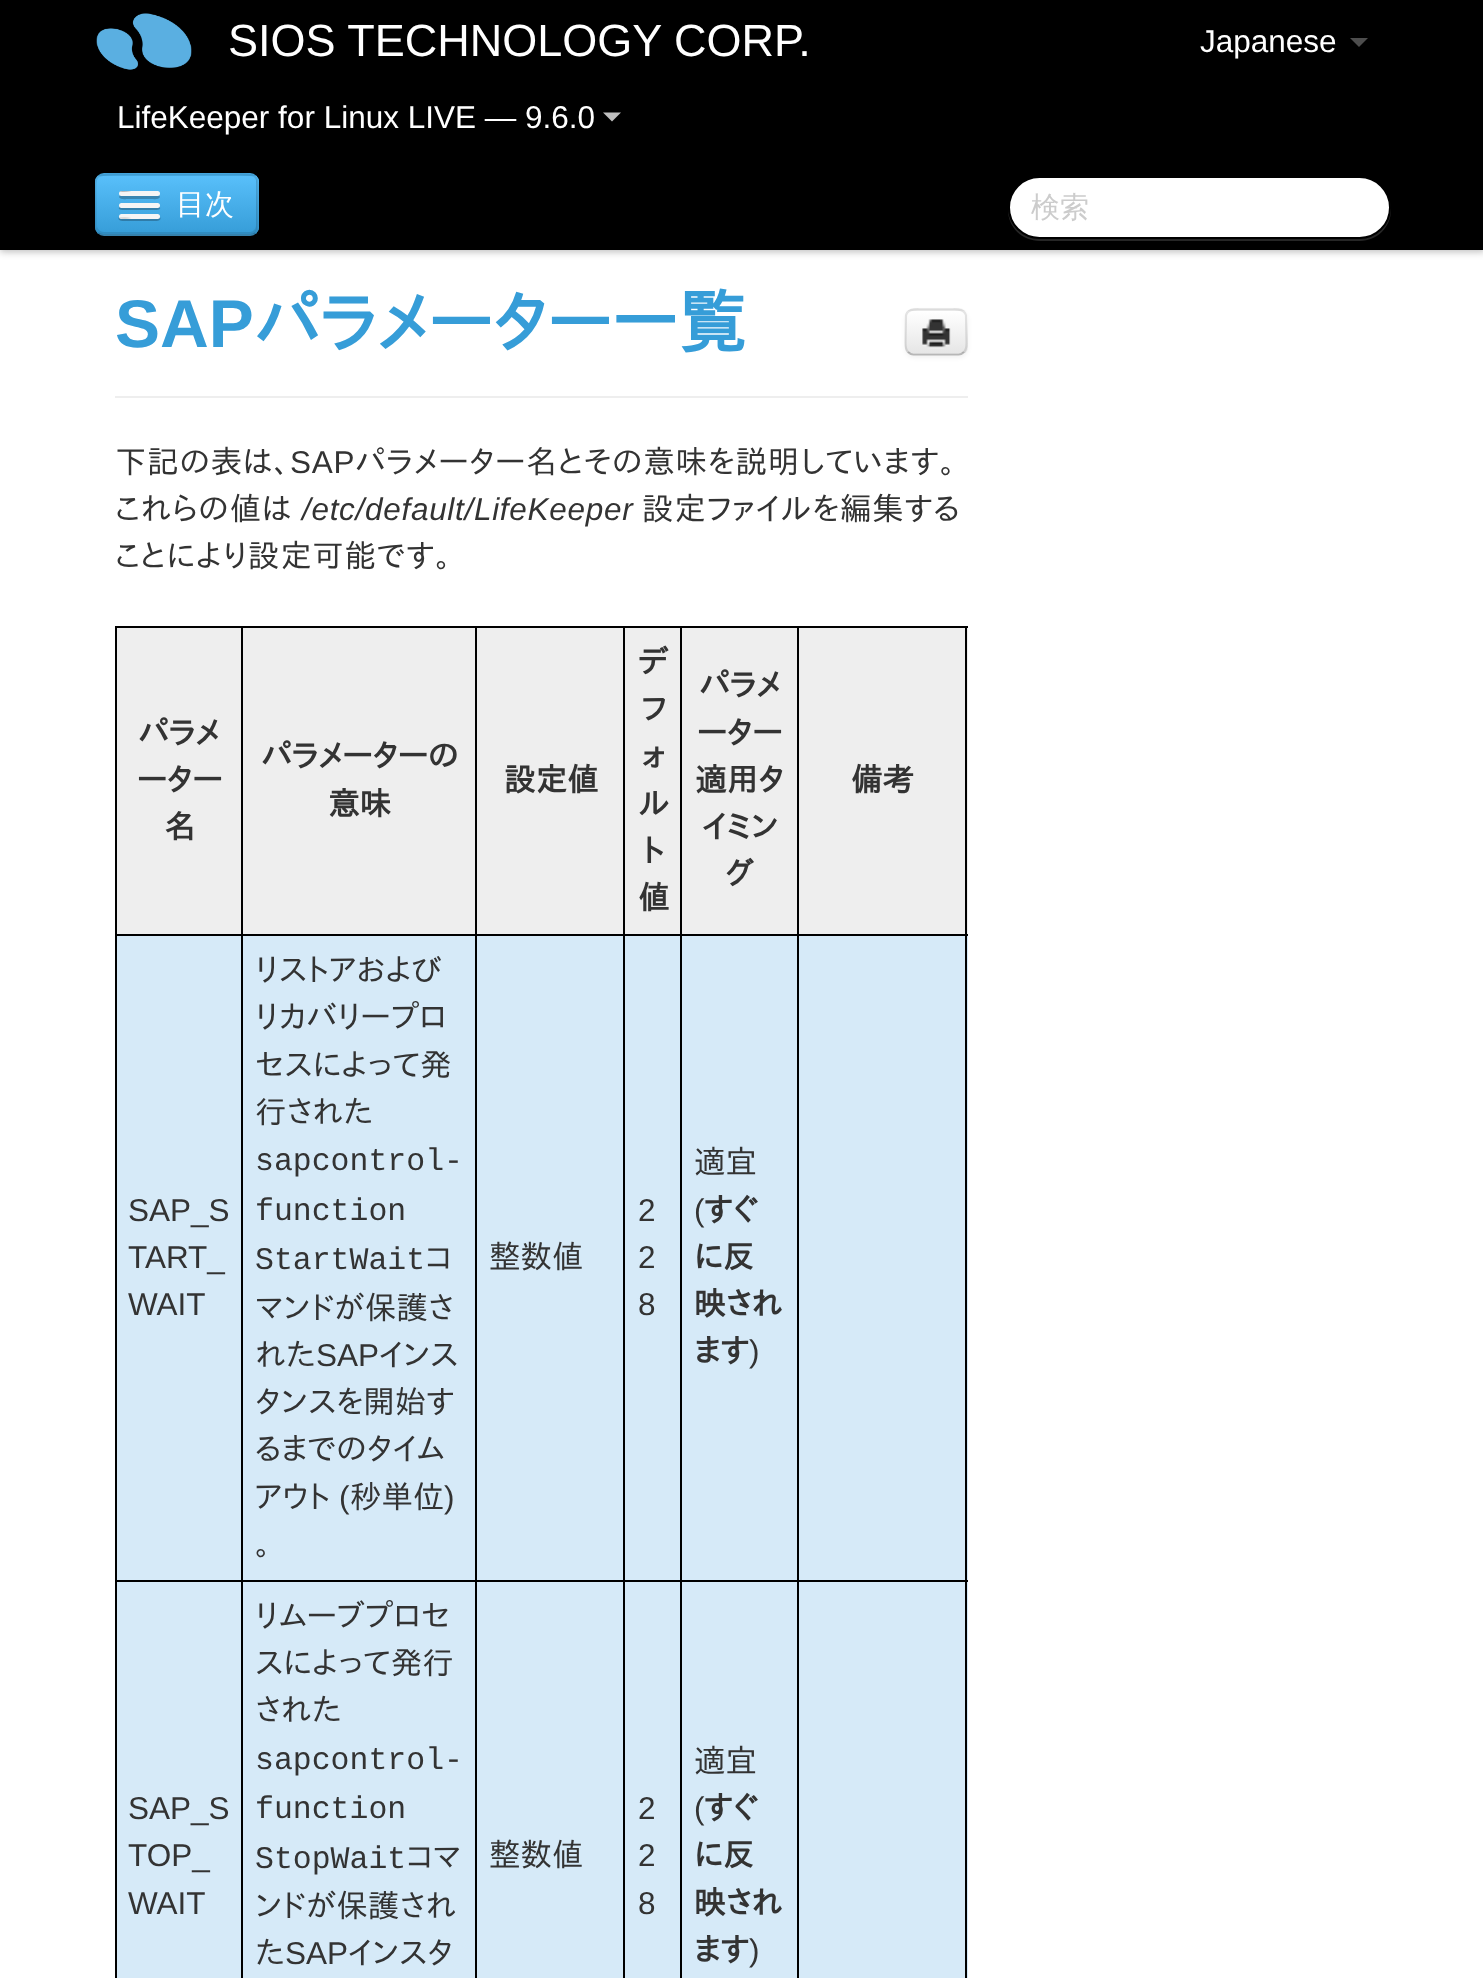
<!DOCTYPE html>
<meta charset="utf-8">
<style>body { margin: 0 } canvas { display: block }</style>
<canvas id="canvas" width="1483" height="1978"></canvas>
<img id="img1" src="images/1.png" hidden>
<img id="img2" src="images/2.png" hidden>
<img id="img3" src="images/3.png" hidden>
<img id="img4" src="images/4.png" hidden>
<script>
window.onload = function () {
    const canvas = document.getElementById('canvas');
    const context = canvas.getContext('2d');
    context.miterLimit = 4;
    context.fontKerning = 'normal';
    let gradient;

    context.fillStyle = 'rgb(255, 255, 255)';
    context.fillRect(0, 0, 1483, 1978);
    context.fillStyle = 'rgba(0, 0, 0, 0.25)';
    context.filter = 'blur(3.5px)';
    context.beginPath();
    context.rect(0, 2, 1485, 250);
    context.fill();
    context.filter = 'none';
    context.fillStyle = 'rgb(0, 0, 0)';
    context.fillRect(0, 0, 1483, 250);
    context.drawImage(document.getElementById('img1'), 96, 13, 96, 57);
    context.fillStyle = 'rgb(191, 191, 191)';
    context.beginPath();
    context.moveTo(603, 112.5);
    context.lineTo(621, 112.5);
    context.lineTo(612, 121.5);
    context.closePath();
    context.fill();
    context.fillStyle = 'rgb(71, 174, 233)';
    context.beginPath();
    context.roundRect(95, 173, 164, 63, 9);
    context.fill();
    context.save();
    context.beginPath();
    context.roundRect(95, 173, 164, 63, 9);
    context.clip();
    gradient = context.createLinearGradient(177, 176, 177, 234);
    gradient.addColorStop(0, 'rgb(88, 191, 250)');
    gradient.addColorStop(1, 'rgb(54, 157, 216)');
    context.fillStyle = gradient;
    context.fillRect(95, 176, 164, 58);
    context.restore();
    context.fillStyle = 'rgba(0, 0, 0, 0.1)';
    context.beginPath();
    context.moveTo(97, 225);
    context.lineTo(97, 227);
    context.bezierCurveTo(97, 231, 100, 234, 104, 234);
    context.lineTo(250, 234);
    context.bezierCurveTo(254, 234, 257, 231, 257, 227);
    context.lineTo(257, 183);
    context.bezierCurveTo(257, 182, 257, 180, 256, 179);
    context.lineTo(256, 225);
    context.bezierCurveTo(256, 229, 253, 232, 250, 232);
    context.lineTo(104, 232);
    context.bezierCurveTo(100, 232, 97, 229, 97, 225);
    context.closePath();
    context.fill();
    context.beginPath();
    context.moveTo(255.5, 233);
    context.bezierCurveTo(254, 234.5, 252, 235, 250, 235);
    context.lineTo(103.5, 235);
    context.bezierCurveTo(101.5, 235, 99.5, 234.5, 98, 233);
    context.strokeStyle = 'rgba(0, 0, 0, 0.25)';
    context.lineWidth = 2.2;
    context.stroke();
    context.beginPath();
    context.moveTo(98, 233);
    context.bezierCurveTo(94.5, 229.5, 95.5, 224, 95.5, 220);
    context.lineTo(95.5, 205);
    context.bezierCurveTo(95.5, 170, 91, 174.5, 128, 174.5);
    context.lineTo(225.5, 174.5);
    context.bezierCurveTo(262, 174.5, 257.5, 170, 257.5, 205);
    context.lineTo(257.5, 220);
    context.bezierCurveTo(257.5, 224, 258.5, 229.5, 255.5, 233);
    context.strokeStyle = 'rgba(0, 0, 0, 0.1)';
    context.stroke();
    context.fillStyle = 'rgb(57, 134, 178)';
    context.beginPath();
    context.moveTo(120, 195);
    context.lineTo(119, 197);
    context.bezierCurveTo(120, 200, 126, 199, 128, 199);
    context.lineTo(152, 199);
    context.bezierCurveTo(153, 199, 159, 200, 160, 197);
    context.lineTo(159, 195);
    context.lineTo(158, 196);
    context.lineTo(121, 196);
    context.closePath();
    context.fill();
    context.fillStyle = 'rgb(245, 245, 245)';
    context.beginPath();
    context.roundRect(119, 191, 41, 5, 2.5);
    context.fill();
    context.drawImage(document.getElementById('img2'), 120, 191, 11, 1);
    context.fillStyle = 'rgb(52, 129, 173)';
    context.beginPath();
    context.moveTo(120, 206);
    context.bezierCurveTo(115, 211, 127, 210, 128, 210);
    context.lineTo(152, 210);
    context.bezierCurveTo(152, 210, 164, 211, 159, 206);
    context.lineTo(158, 207);
    context.lineTo(121, 207);
    context.closePath();
    context.fill();
    context.fillStyle = 'rgb(245, 245, 245)';
    context.beginPath();
    context.roundRect(119, 203, 41, 5, 2.5);
    context.fill();
    context.fillStyle = 'rgb(47, 124, 169)';
    context.beginPath();
    context.moveTo(119, 217);
    context.bezierCurveTo(116, 222, 127, 221, 128, 221);
    context.lineTo(152, 221);
    context.bezierCurveTo(152, 221, 163, 222, 160, 217);
    context.bezierCurveTo(159, 218, 158, 218, 158, 218);
    context.lineTo(122, 218);
    context.bezierCurveTo(121, 218, 120, 218, 119, 217);
    context.closePath();
    context.fill();
    context.fillStyle = 'rgb(245, 245, 245)';
    context.beginPath();
    context.roundRect(119, 214, 41, 5, 2.5);
    context.fill();
    context.drawImage(document.getElementById('img3'), 120, 217, 11, 2);
    context.fillStyle = 'rgb(38, 38, 38)';
    context.beginPath();
    context.moveTo(1008, 208);
    context.lineTo(1008, 210);
    context.bezierCurveTo(1008, 227, 1022, 241, 1040, 241);
    context.lineTo(1360, 241);
    context.bezierCurveTo(1377, 241, 1391, 227, 1391, 210);
    context.lineTo(1390, 202);
    context.lineTo(1390, 207);
    context.bezierCurveTo(1390, 224, 1376, 238, 1359, 238);
    context.lineTo(1040, 238);
    context.bezierCurveTo(1023, 238, 1009, 225, 1008, 208);
    context.closePath();
    context.fill();
    context.fillStyle = 'rgb(255, 255, 255)';
    context.beginPath();
    context.roundRect(1009, 177, 381, 61, 30.5);
    context.fill();
    context.strokeStyle = 'rgb(0, 0, 0)';
    context.lineWidth = 2;
    context.stroke();
    context.fillStyle = 'rgb(77, 77, 77)';
    context.beginPath();
    context.moveTo(1350, 38);
    context.lineTo(1368, 38);
    context.lineTo(1359, 47);
    context.closePath();
    context.fill();
    context.fillStyle = 'rgb(238, 238, 238)';
    context.fillRect(115, 396, 853, 2);
    context.fillStyle = 'rgba(0, 0, 0, 0.05)';
    context.filter = 'blur(2px)';
    context.beginPath();
    context.roundRect(905, 311, 63, 47, 9);
    context.fill();
    context.filter = 'none';
    context.fillStyle = 'rgb(245, 245, 245)';
    context.beginPath();
    context.roundRect(905, 308, 63, 48, 9);
    context.fill();
    context.save();
    context.beginPath();
    context.roundRect(905, 308, 63, 48, 9);
    context.clip();
    gradient = context.createLinearGradient(936, 311, 936, 353);
    gradient.addColorStop(0, 'rgb(255, 255, 255)');
    gradient.addColorStop(1, 'rgb(230, 230, 230)');
    context.fillStyle = gradient;
    context.fillRect(905, 311, 63, 42);
    context.restore();
    context.beginPath();
    context.moveTo(964, 352);
    context.bezierCurveTo(962.5, 353.5, 960.5, 354.5, 958.5, 354.5);
    context.lineTo(913.5, 354.5);
    context.bezierCurveTo(911.5, 354.5, 909.5, 353.5, 908, 352);
    context.strokeStyle = 'rgba(0, 0, 0, 0.25)';
    context.lineWidth = 2.2;
    context.stroke();
    context.beginPath();
    context.moveTo(908, 352);
    context.bezierCurveTo(905, 349, 905.5, 345.5, 905.5, 341.5);
    context.lineTo(906, 315.5);
    context.bezierCurveTo(907.5, 308.5, 915.5, 309.5, 921, 309.5);
    context.lineTo(951, 309.5);
    context.bezierCurveTo(956.5, 309.5, 964.5, 308.5, 966, 315.5);
    context.lineTo(966.5, 341.5);
    context.bezierCurveTo(966.5, 345.5, 967, 349, 964, 352);
    context.strokeStyle = 'rgba(0, 0, 0, 0.1)';
    context.stroke();
    context.drawImage(document.getElementById('img4'), 922, 319, 29, 30);
    context.fillStyle = 'rgb(0, 0, 0)';
    context.fillRect(115, 626, 853, 2);
    context.fillStyle = 'rgb(214, 234, 248)';
    context.fillRect(117, 936, 851, 1042);
    context.fillStyle = 'rgb(238, 238, 238)';
    context.fillRect(799, 628, 169, 306);
    context.fillStyle = 'rgb(0, 0, 0)';
    context.fillRect(965, 626, 2, 1352);
    context.fillRect(115, 626, 2, 1352);
    context.fillStyle = 'rgb(238, 238, 238)';
    context.fillRect(117, 628, 124, 306);
    context.fillRect(243, 628, 232, 306);
    context.fillStyle = 'rgb(0, 0, 0)';
    context.fillRect(797, 934, 171, 2);
    context.fillRect(797, 1580, 171, 2);
    context.fillRect(797, 1580, 2, 398);
    context.fillRect(680, 1580, 119, 2);
    context.fillRect(797, 934, 2, 648);
    context.fillRect(680, 934, 119, 2);
    context.fillRect(680, 1580, 2, 398);
    context.fillRect(623, 1580, 59, 2);
    context.fillRect(680, 934, 2, 648);
    context.fillRect(623, 934, 59, 2);
    context.fillRect(623, 1580, 2, 398);
    context.fillRect(475, 1580, 151, 2);
    context.fillRect(623, 934, 2, 648);
    context.fillRect(475, 934, 151, 2);
    context.fillRect(475, 1580, 2, 398);
    context.fillRect(241, 1580, 236, 2);
    context.fillRect(475, 934, 2, 648);
    context.fillRect(241, 934, 236, 2);
    context.fillRect(241, 1580, 2, 398);
    context.fillRect(115, 1580, 128, 2);
    context.fillRect(241, 934, 2, 648);
    context.fillRect(115, 934, 128, 2);
    context.fillRect(241, 626, 2, 310);
    context.fillStyle = 'rgb(238, 238, 238)';
    context.fillRect(477, 628, 203, 306);
    context.fillStyle = 'rgb(0, 0, 0)';
    context.fillRect(475, 626, 2, 310);
    context.fillRect(623, 626, 2, 310);
    context.fillStyle = 'rgb(238, 238, 238)';
    context.fillRect(682, 628, 115, 306);
    context.fillStyle = 'rgb(0, 0, 0)';
    context.fillRect(680, 626, 2, 310);
    context.fillRect(797, 626, 2, 310);
    context.font = '45px Liberation Sans';
    context.fillStyle = 'rgb(255, 255, 255)';
    context.fillText('SIOS TECHNOLOGY CORP.', 228, 56);
    context.font = '31.5px Liberation Sans';
    context.fillText('LifeKeeper for Linux LIVE — 9.6.0', 117, 128);
    context.font = '500 29px WenQuanYi Zen Hei';
    context.fillText('目次', 176, 214);
    context.fillStyle = 'rgb(204, 204, 204)';
    context.fillText('検索', 1031, 217);
    context.font = '31.5px Liberation Sans';
    context.fillStyle = 'rgb(255, 255, 255)';
    context.fillText('Japanese', 1200, 52);
    context.font = 'bold 67.5px Liberation Sans';
    context.fillStyle = 'rgb(54, 157, 216)';
    context.fillText('SAP', 115, 347);
    context.font = 'bold 67.5px IPAPGothic';
    context.fillText('パラメーター一覧', 254, 347);
    context.letterSpacing = '0.7px';
    context.font = '31.5px IPAPGothic';
    context.fillStyle = 'rgb(51, 51, 51)';
    context.fillText('下記の表は、', 115, 473);
    context.font = '31.5px Liberation Sans';
    context.fillText('SAP', 290, 473);
    context.font = '31.5px IPAPGothic';
    context.fillText('パラメーター名とその意味を説明しています。', 355, 473);
    context.fillText('これらの値は', 115, 520);
    context.font = 'italic 31.5px Liberation Sans';
    context.fillText('/etc/default/LifeKeeper', 302, 520);
    context.font = '31.5px IPAPGothic';
    context.fillText('設定ファイルを編集する', 642, 520);
    context.fillText('ことにより設定可能です。', 115, 567);
    context.letterSpacing = '0px';
    context.font = 'bold 31.5px IPAPGothic';
    context.fillText('パラメ', 138, 744);
    context.fillText('ーター', 137, 791);
    context.fillText('名', 164, 838);
    context.fillText('パラメーターの', 261, 767);
    context.fillText('意味', 328, 815);
    context.fillText('設定値', 504, 791);
    context.fillText('デ', 638, 673);
    context.fillText('フ', 641, 720);
    context.fillText('ォ', 642, 767);
    context.fillText('ル', 638, 815);
    context.fillText('ト', 642, 862);
    context.fillText('値', 638, 909);
    context.fillText('パラメ', 699, 696);
    context.fillText('ーター', 697, 744);
    context.fillText('適用タ', 695, 791);
    context.fillText('イミン', 702, 838);
    context.fillText('グ', 725, 885);
    context.fillText('備考', 851, 791);
    context.font = '31.5px Liberation Sans';
    context.fillText('SAP_S', 128, 1221);
    context.fillText('TART_', 128, 1268);
    context.fillText('WAIT', 128, 1315);
    context.font = '31.5px IPAPGothic';
    context.fillText('リストアおよび', 255, 981);
    context.fillText('リカバリープロ', 255, 1028);
    context.fillText('セスによって発', 255, 1076);
    context.fillText('行された', 255, 1123);
    context.font = '31.5px Liberation Mono';
    context.fillText('sapcontrol-', 255, 1170);
    context.fillText('function', 255, 1220);
    context.fillText('StartWait', 255, 1269);
    context.font = '31.5px IPAPGothic';
    context.fillText('コ', 425, 1269);
    context.fillText('マンドが保護さ', 255, 1319);
    context.fillText('れた', 255, 1366);
    context.font = '31.5px Liberation Sans';
    context.fillText('SAP', 316, 1366);
    context.font = '31.5px IPAPGothic';
    context.fillText('インス', 379, 1366);
    context.fillText('タンスを開始す', 255, 1413);
    context.fillText('るまでのタイム', 255, 1460);
    context.fillText('アウト', 255, 1508);
    context.font = '31.5px Liberation Sans';
    context.fillText('(', 339, 1508);
    context.font = '31.5px IPAPGothic';
    context.fillText('秒単位', 350, 1508);
    context.font = '31.5px Liberation Sans';
    context.fillText(')', 444, 1508);
    context.font = '31.5px IPAPGothic';
    context.fillText('。', 255, 1555);
    context.fillText('整数値', 489, 1268);
    context.font = '31.5px Liberation Sans';
    context.fillText('2', 638, 1221);
    context.fillText('2', 638, 1268);
    context.fillText('8', 638, 1315);
    context.font = '31.5px IPAPGothic';
    context.fillText('適宜', 694, 1173);
    context.font = '31.5px Liberation Sans';
    context.fillText('(', 694, 1221);
    context.font = 'bold 31.5px IPAPGothic';
    context.fillText('すぐ', 704, 1221);
    context.fillText('に反', 694, 1268);
    context.fillText('映され', 694, 1315);
    context.fillText('ます', 694, 1362);
    context.font = '31.5px Liberation Sans';
    context.fillText(')', 749, 1362);
    context.fillText('SAP_S', 128, 1819);
    context.fillText('TOP_', 128, 1866);
    context.fillText('WAIT', 128, 1914);
    context.font = '31.5px IPAPGothic';
    context.fillText('リムーブプロセ', 255, 1627);
    context.fillText('スによって発行', 255, 1674);
    context.fillText('された', 255, 1721);
    context.font = '31.5px Liberation Mono';
    context.fillText('sapcontrol-', 255, 1769);
    context.fillText('function', 255, 1818);
    context.fillText('StopWait', 255, 1868);
    context.font = '31.5px IPAPGothic';
    context.fillText('コマ', 406, 1868);
    context.fillText('ンドが保護され', 255, 1917);
    context.fillText('た', 255, 1964);
    context.font = '31.5px Liberation Sans';
    context.fillText('SAP', 285, 1964);
    context.font = '31.5px IPAPGothic';
    context.fillText('インスタ', 348, 1964);
    context.fillText('整数値', 489, 1866);
    context.font = '31.5px Liberation Sans';
    context.fillText('2', 638, 1819);
    context.fillText('2', 638, 1866);
    context.fillText('8', 638, 1914);
    context.font = '31.5px IPAPGothic';
    context.fillText('適宜', 694, 1772);
    context.font = '31.5px Liberation Sans';
    context.fillText('(', 694, 1819);
    context.font = 'bold 31.5px IPAPGothic';
    context.fillText('すぐ', 704, 1819);
    context.fillText('に反', 694, 1866);
    context.fillText('映され', 694, 1914);
    context.fillText('ます', 694, 1961);
    context.font = '31.5px Liberation Sans';
    context.fillText(')', 749, 1961);
};
</script>
